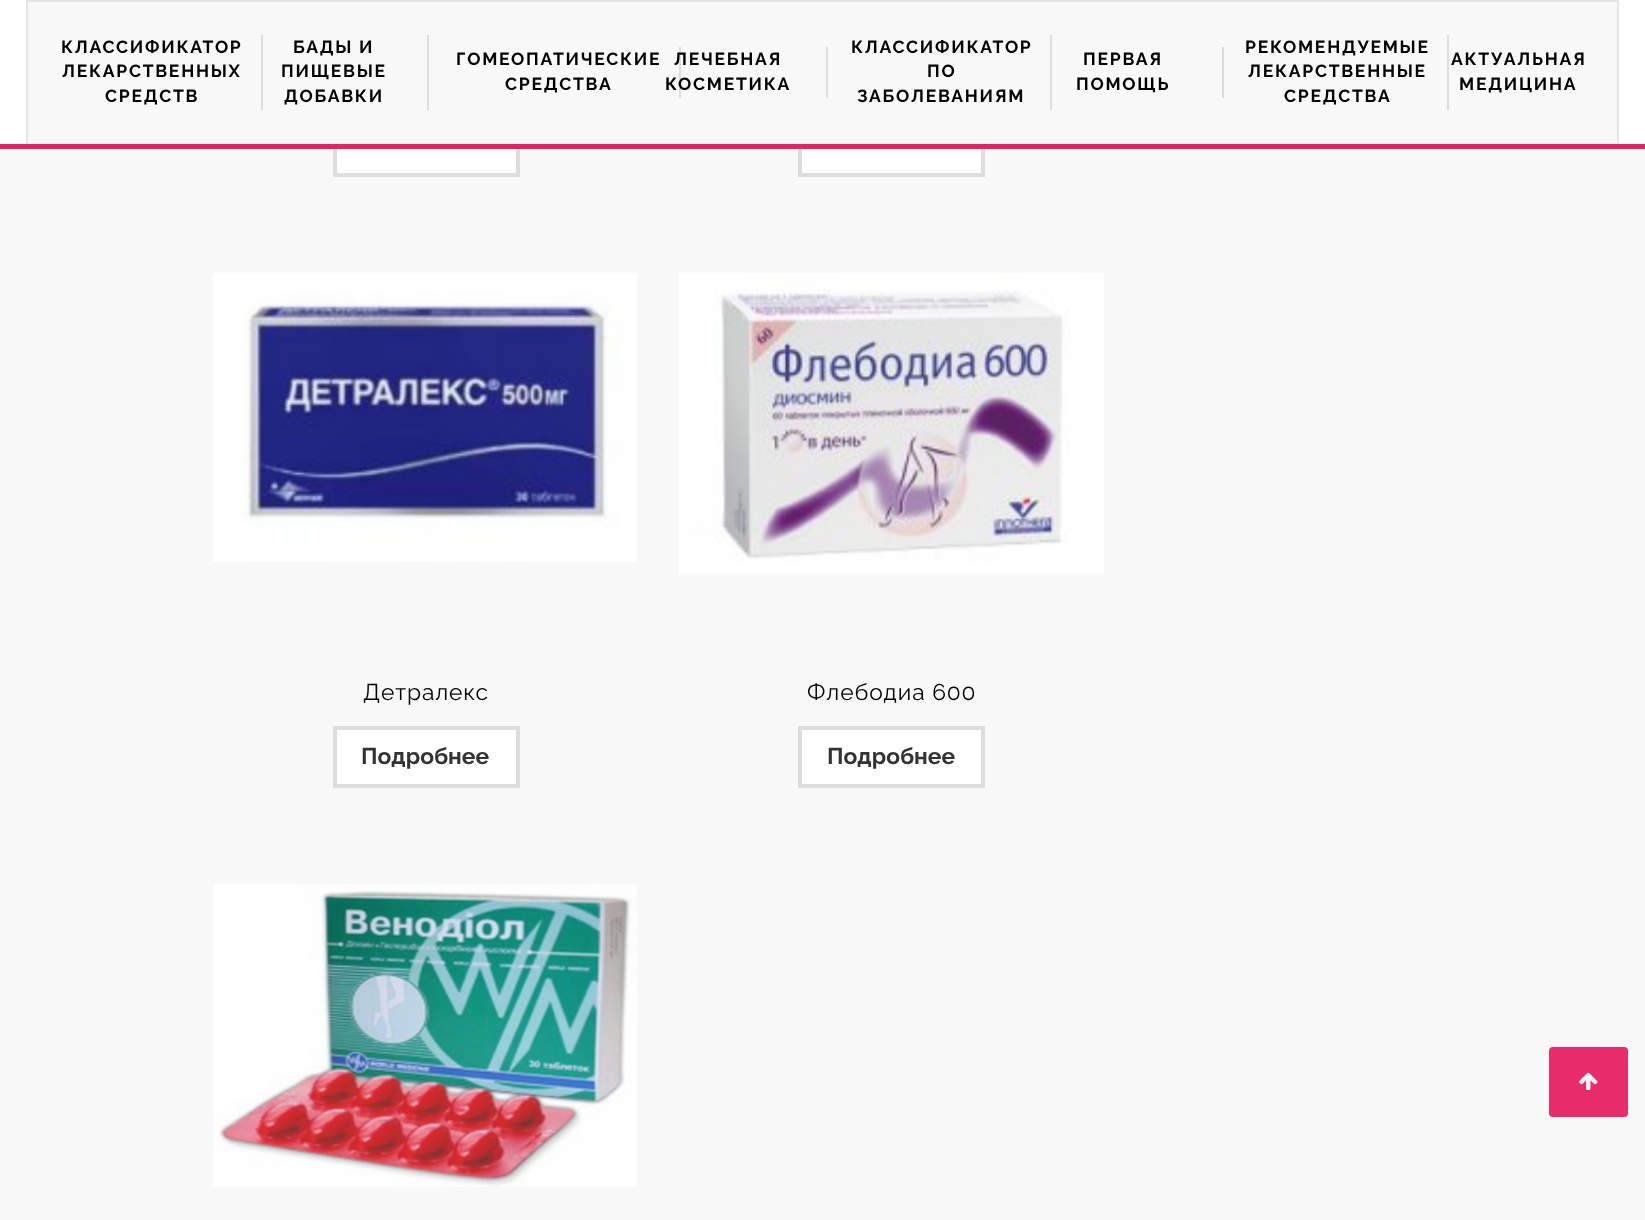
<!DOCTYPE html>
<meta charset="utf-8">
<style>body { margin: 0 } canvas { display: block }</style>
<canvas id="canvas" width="1645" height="1220"></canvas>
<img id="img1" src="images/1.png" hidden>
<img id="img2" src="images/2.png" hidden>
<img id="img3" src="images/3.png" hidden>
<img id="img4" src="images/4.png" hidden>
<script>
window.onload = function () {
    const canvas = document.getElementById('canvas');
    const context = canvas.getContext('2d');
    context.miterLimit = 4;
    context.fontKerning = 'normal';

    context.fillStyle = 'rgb(248, 248, 248)';
    context.fillRect(0, 0, 1645, 1220);
    context.fillStyle = 'rgb(255, 255, 255)';
    context.fillRect(337, 149, 179, 24);
    context.strokeStyle = 'rgb(221, 221, 221)';
    context.lineWidth = 4;
    context.strokeRect(335, 118, 183, 57);
    context.fillRect(802, 149, 179, 24);
    context.strokeRect(800, 118, 183, 57);
    context.fillRect(0, 0, 1645, 144);
    context.fillStyle = 'rgb(230, 34, 99)';
    context.fillRect(0, 144, 1645, 5);
    context.fillStyle = 'rgb(248, 248, 248)';
    context.fillRect(28, 2, 1589, 142);
    context.fillStyle = 'rgb(229, 229, 229)';
    context.fillRect(26, 0, 1593, 2);
    context.fillRect(1617, 0, 2, 144);
    context.fillRect(26, 0, 2, 144);
    context.fillStyle = 'rgb(221, 221, 221)';
    context.fillRect(261, 35, 2, 75);
    context.fillRect(427, 35, 2, 75);
    context.fillRect(679, 47, 2, 51);
    context.fillRect(826, 47, 2, 51);
    context.fillRect(1050, 35, 2, 75);
    context.fillRect(1222, 47, 2, 51);
    context.fillRect(1447, 35, 2, 75);
    context.drawImage(document.getElementById('img1'), 213, 273, 424, 289);
    context.fillStyle = 'rgb(255, 255, 255)';
    context.beginPath();
    context.rect(335, 728, 183, 58);
    context.fill();
    context.stroke();
    context.drawImage(document.getElementById('img2'), 679, 273, 425, 301);
    context.beginPath();
    context.rect(800, 728, 183, 58);
    context.fill();
    context.stroke();
    context.drawImage(document.getElementById('img3'), 213, 884, 424, 303);
    context.fillStyle = 'rgb(231, 45, 107)';
    context.beginPath();
    context.roundRect(1549, 1047, 79, 70, 4);
    context.fill();
    context.drawImage(document.getElementById('img4'), 1579, 1072, 19, 18);
    context.letterSpacing = '1.75px';
    context.font = 'bold 17.5px Raleway';
    context.fillStyle = 'rgb(0, 0, 0)';
    context.fillText('КЛАССИФИКАТОР', 61, 53);
    context.fillText('ЛЕКАРСТВЕННЫХ', 62, 77);
    context.fillText('СРЕДСТВ', 105, 102);
    context.fillText('БАДЫ И', 293, 53);
    context.fillText('ПИЩЕВЫЕ', 281, 77);
    context.fillText('ДОБАВКИ', 284, 102);
    context.fillText('ГОМЕОПАТИЧЕСКИЕ', 456, 65);
    context.fillText('СРЕДСТВА', 505, 90);
    context.fillText('ЛЕЧЕБНАЯ', 674, 65);
    context.fillText('КОСМЕТИКА', 665, 90);
    context.fillText('КЛАССИФИКАТОР', 851, 53);
    context.fillText('ПО', 927, 77);
    context.fillText('ЗАБОЛЕВАНИЯМ', 857, 102);
    context.fillText('ПЕРВАЯ', 1083, 65);
    context.fillText('ПОМОЩЬ', 1076, 90);
    context.fillText('РЕКОМЕНДУЕМЫЕ', 1245, 53);
    context.fillText('ЛЕКАРСТВЕННЫЕ', 1248, 77);
    context.fillText('СРЕДСТВА', 1284, 102);
    context.fillText('АКТУАЛЬНАЯ', 1451, 65);
    context.fillText('МЕДИЦИНА', 1459, 90);
    context.letterSpacing = '0.9px';
    context.font = '22.75px Raleway';
    context.fillText('Детралекс', 363, 700);
    context.letterSpacing = '0px';
    context.font = 'bold 22.75px Raleway';
    context.fillStyle = 'rgb(51, 51, 51)';
    context.fillText('Подробнее', 361, 764);
    context.letterSpacing = '0.9px';
    context.font = '22.75px Raleway';
    context.fillStyle = 'rgb(0, 0, 0)';
    context.fillText('Флебодиа 600', 807, 700);
    context.letterSpacing = '0px';
    context.font = 'bold 22.75px Raleway';
    context.fillStyle = 'rgb(51, 51, 51)';
    context.fillText('Подробнее', 827, 764);
};
</script>
